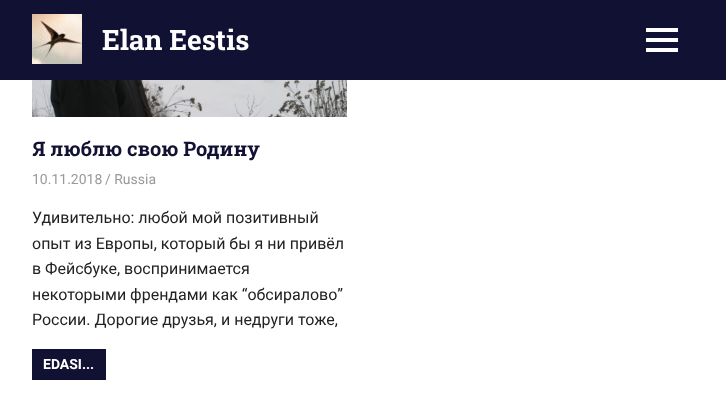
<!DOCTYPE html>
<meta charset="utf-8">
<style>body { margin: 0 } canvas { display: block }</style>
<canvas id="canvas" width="726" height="395"></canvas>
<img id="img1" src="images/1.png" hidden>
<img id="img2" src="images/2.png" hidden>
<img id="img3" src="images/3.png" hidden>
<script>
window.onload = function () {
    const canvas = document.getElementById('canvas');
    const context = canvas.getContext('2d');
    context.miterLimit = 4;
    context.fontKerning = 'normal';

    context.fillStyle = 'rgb(255, 255, 255)';
    context.fillRect(0, 0, 726, 395);
    context.fillStyle = 'rgb(17, 17, 51)';
    context.fillRect(0, 0, 726, 80);
    context.drawImage(document.getElementById('img1'), 32, 14, 50, 50);
    context.drawImage(document.getElementById('img2'), 646, 28, 32, 24);
    context.drawImage(document.getElementById('img3'), 32, 80, 315, 37);
    context.fillRect(32, 349, 74, 31);
    context.font = 'bold 28px Roboto Slab';
    context.fillStyle = 'rgb(255, 255, 255)';
    context.fillText('Elan Eestis', 102, 50);
    context.font = 'bold 20px Roboto Slab';
    context.fillStyle = 'rgb(17, 17, 51)';
    context.fillText('Я люблю свою Родину', 32, 156);
    context.font = '14px Roboto';
    context.fillStyle = 'rgb(153, 153, 153)';
    context.fillText('10.11.2018', 32, 184);
    context.fillText('/ Russia', 105, 184);
    context.font = '16px Roboto';
    context.fillStyle = 'rgb(34, 34, 34)';
    context.fillText('Удивительно: любой мой позитивный', 32, 223);
    context.fillText('опыт из Европы, который бы я ни привёл', 32, 249);
    context.fillText('в Фейсбуке, воспринимается', 32, 274);
    context.fillText('некоторыми френдами как “обсиралово”', 32, 300);
    context.fillText('России. Дорогие друзья, и недруги тоже,', 32, 325);
    context.font = 'bold 14px Roboto';
    context.fillStyle = 'rgb(255, 255, 255)';
    context.fillText('EDASI...', 43, 369);
};
</script>
